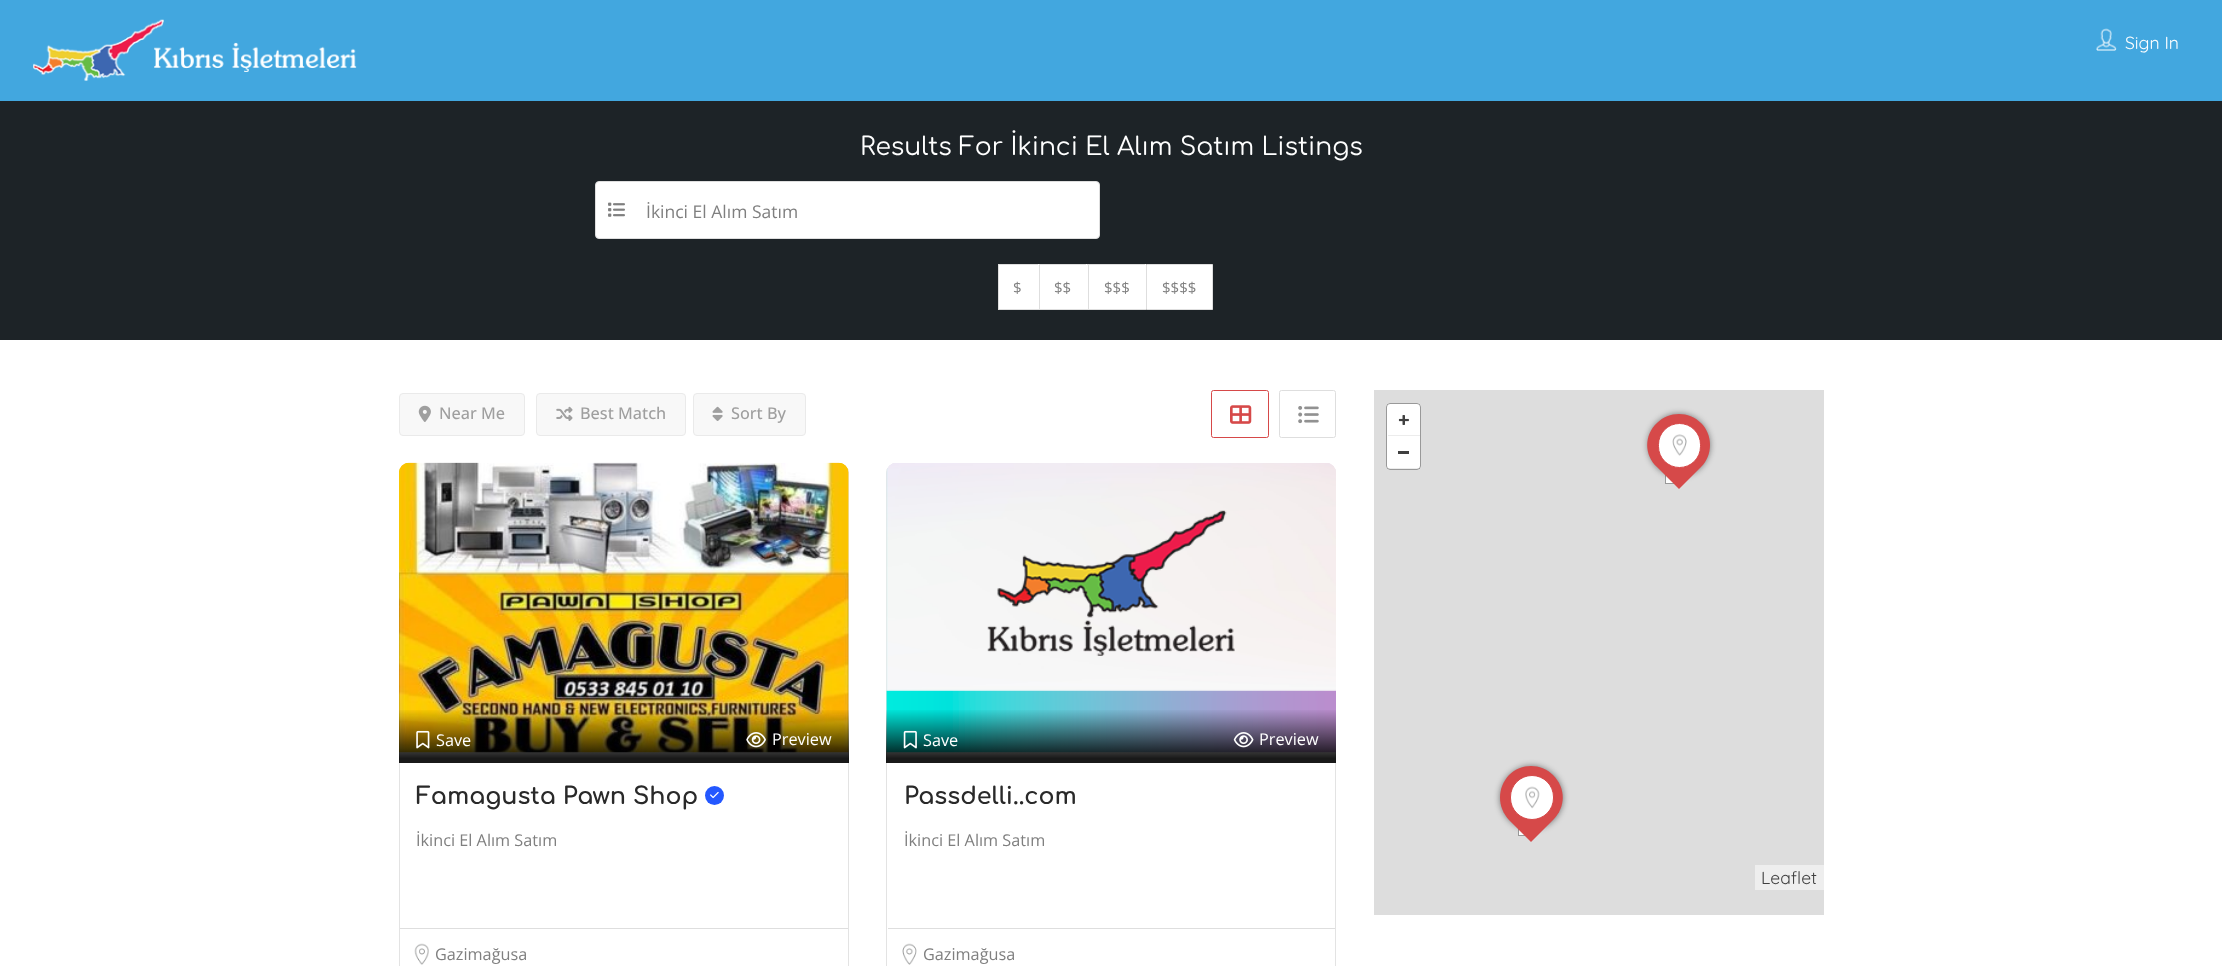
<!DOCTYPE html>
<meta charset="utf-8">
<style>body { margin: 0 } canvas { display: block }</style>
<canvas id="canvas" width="2222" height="966"></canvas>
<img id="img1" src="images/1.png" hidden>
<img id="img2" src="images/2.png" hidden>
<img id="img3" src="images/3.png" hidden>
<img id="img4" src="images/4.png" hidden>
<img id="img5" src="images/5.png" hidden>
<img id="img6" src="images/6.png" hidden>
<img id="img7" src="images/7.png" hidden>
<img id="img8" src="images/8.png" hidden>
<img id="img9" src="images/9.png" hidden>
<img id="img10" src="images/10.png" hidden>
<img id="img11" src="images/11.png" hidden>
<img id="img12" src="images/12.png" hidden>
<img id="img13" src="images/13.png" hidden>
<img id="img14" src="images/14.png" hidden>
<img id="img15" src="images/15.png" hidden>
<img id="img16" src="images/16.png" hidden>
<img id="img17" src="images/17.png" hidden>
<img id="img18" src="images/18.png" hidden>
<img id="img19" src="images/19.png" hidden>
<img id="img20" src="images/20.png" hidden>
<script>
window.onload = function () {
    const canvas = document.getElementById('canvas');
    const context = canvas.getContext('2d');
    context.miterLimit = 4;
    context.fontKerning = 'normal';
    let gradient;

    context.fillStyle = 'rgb(255, 255, 255)';
    context.fillRect(0, 0, 2222, 966);
    context.fillStyle = 'rgb(66, 167, 223)';
    context.fillRect(0, 0, 2222, 101);
    context.drawImage(document.getElementById('img1'), 33, 19, 324, 62);
    context.drawImage(document.getElementById('img2'), 2096, 28, 21, 23);
    context.fillStyle = 'rgb(29, 35, 39)';
    context.fillRect(0, 101, 2222, 239);
    context.fillStyle = 'rgb(255, 255, 255)';
    context.beginPath();
    context.roundRect(595.5, 181.5, 504, 57, 3.5);
    context.fill();
    context.strokeStyle = 'rgb(222, 222, 222)';
    context.stroke();
    context.drawImage(document.getElementById('img3'), 608, 202, 17, 15);
    context.fillRect(999, 265, 39, 44);
    context.fillStyle = 'rgb(222, 222, 222)';
    context.fillRect(998, 264, 148, 1);
    context.fillStyle = 'rgb(255, 255, 255)';
    context.fillRect(1038, 264, 1, 46);
    context.fillStyle = 'rgb(222, 222, 222)';
    context.fillRect(998, 309, 41, 1);
    context.fillRect(998, 264, 1, 46);
    context.fillStyle = 'rgb(255, 255, 255)';
    context.fillRect(1040, 265, 48, 44);
    context.fillRect(1086, 264, 1, 46);
    context.fillStyle = 'rgb(222, 222, 222)';
    context.fillRect(1039, 309, 49, 1);
    context.fillRect(1039, 264, 1, 46);
    context.fillStyle = 'rgb(255, 255, 255)';
    context.fillRect(1089, 265, 56, 44);
    context.fillRect(1145, 264, 1, 46);
    context.fillStyle = 'rgb(222, 222, 222)';
    context.fillRect(1088, 309, 58, 1);
    context.fillRect(1088, 264, 1, 46);
    context.fillStyle = 'rgb(255, 255, 255)';
    context.beginPath();
    context.rect(1146.5, 264.5, 66, 45);
    context.fill();
    context.stroke();
    context.fillStyle = 'rgb(248, 248, 248)';
    context.beginPath();
    context.roundRect(399.5, 393.5, 125, 42, 3.5);
    context.fill();
    context.strokeStyle = 'rgb(234, 234, 234)';
    context.stroke();
    context.drawImage(document.getElementById('img4'), 418, 405, 13, 17);
    context.beginPath();
    context.roundRect(536.5, 393.5, 149, 42, 3.5);
    context.fill();
    context.stroke();
    context.drawImage(document.getElementById('img5'), 556, 406, 17, 15);
    context.beginPath();
    context.roundRect(693.5, 393.5, 112, 42, 3.5);
    context.fill();
    context.stroke();
    context.drawImage(document.getElementById('img6'), 712, 406, 11, 15);
    context.beginPath();
    context.roundRect(1211.5, 390.5, 57, 47, 2);
    context.strokeStyle = 'rgb(214, 73, 73)';
    context.stroke();
    context.drawImage(document.getElementById('img7'), 1230, 405, 22, 19);
    context.beginPath();
    context.roundRect(1279.5, 390.5, 56, 47, 2);
    context.strokeStyle = 'rgb(222, 222, 222)';
    context.stroke();
    context.drawImage(document.getElementById('img8'), 1298, 406, 21, 18);
    context.beginPath();
    context.roundRect(399.5, 463.5, 449, 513, 9.5);
    context.strokeStyle = 'rgb(227, 227, 227)';
    context.stroke();
    context.drawImage(document.getElementById('img9'), 399, 462, 450, 291);
    gradient = context.createLinearGradient(624, 763, 624, 705);
    gradient.addColorStop(0.08, 'rgba(0, 0, 0, 0.9)');
    gradient.addColorStop(0.94, 'rgba(0, 0, 0, 0)');
    context.fillStyle = gradient;
    context.fillRect(399, 710, 450, 53);
    context.drawImage(document.getElementById('img10'), 416, 730, 14, 19);
    context.drawImage(document.getElementById('img11'), 746, 732, 20, 16);
    context.fillStyle = 'rgb(36, 88, 255)';
    context.beginPath();
    context.arc(714.5, 795.5, 9.5, 0, 2 * Math.PI);
    context.fill();
    context.drawImage(document.getElementById('img12'), 710, 791, 9, 8);
    context.fillStyle = 'rgb(222, 222, 222)';
    context.fillRect(400, 928, 448, 1);
    context.drawImage(document.getElementById('img13'), 414, 943, 15, 22);
    context.beginPath();
    context.roundRect(886.5, 463.5, 449, 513, 9.5);
    context.stroke();
    context.drawImage(document.getElementById('img14'), 886, 463, 450, 290);
    gradient = context.createLinearGradient(1111, 763, 1111, 705);
    gradient.addColorStop(0.08, 'rgba(0, 0, 0, 0.9)');
    gradient.addColorStop(0.94, 'rgba(0, 0, 0, 0)');
    context.fillStyle = gradient;
    context.fillRect(886, 710, 450, 53);
    context.drawImage(document.getElementById('img15'), 903, 730, 14, 19);
    context.drawImage(document.getElementById('img16'), 1233, 732, 21, 16);
    context.fillStyle = 'rgb(222, 222, 222)';
    context.fillRect(888, 928, 447, 1);
    context.drawImage(document.getElementById('img17'), 902, 943, 15, 22);
    context.fillStyle = 'rgb(221, 221, 221)';
    context.fillRect(1374, 390, 450, 525);
    context.fillStyle = 'rgb(255, 255, 255)';
    context.fillRect(1666, 476, 7, 7);
    context.strokeStyle = 'rgb(153, 153, 153)';
    context.strokeRect(1665.5, 469.5, 14, 14);
    context.fillStyle = 'rgba(0, 0, 0, 0.47)';
    context.filter = 'blur(3px)';
    context.beginPath();
    context.roundRect(1648, 414, 62, 62, 31);
    context.fill();
    context.filter = 'none';
    context.fillStyle = 'rgb(214, 73, 73)';
    context.beginPath();
    context.moveTo(1657, 423);
    context.bezierCurveTo(1669, 411, 1689, 411, 1701, 423);
    context.bezierCurveTo(1713, 435, 1713, 455, 1701, 467);
    context.lineTo(1679, 489);
    context.lineTo(1657, 467);
    context.bezierCurveTo(1644, 455, 1644, 435, 1657, 423);
    context.closePath();
    context.fill();
    context.fillStyle = 'rgb(255, 255, 255)';
    context.beginPath();
    context.roundRect(1658.5, 423.5, 42, 44, 21);
    context.fill();
    context.strokeStyle = 'rgb(214, 73, 73)';
    context.stroke();
    context.drawImage(document.getElementById('img18'), 1672, 434, 15, 22);
    context.fillRect(1519, 830, 5, 5);
    context.strokeStyle = 'rgb(153, 153, 153)';
    context.strokeRect(1518.5, 821.5, 14, 14);
    context.fillStyle = 'rgba(0, 0, 0, 0.47)';
    context.filter = 'blur(3px)';
    context.beginPath();
    context.roundRect(1500, 766, 63, 63, 31.5);
    context.fill();
    context.filter = 'none';
    context.fillStyle = 'rgb(214, 73, 73)';
    context.beginPath();
    context.moveTo(1509, 775);
    context.bezierCurveTo(1521, 763, 1541, 763, 1553, 775);
    context.bezierCurveTo(1566, 788, 1566, 807, 1553, 820);
    context.lineTo(1531, 842);
    context.lineTo(1509, 820);
    context.bezierCurveTo(1497, 807, 1497, 788, 1509, 775);
    context.closePath();
    context.fill();
    context.fillStyle = 'rgb(255, 255, 255)';
    context.beginPath();
    context.roundRect(1510.5, 775.5, 43, 44, 21.5);
    context.fill();
    context.strokeStyle = 'rgb(214, 73, 73)';
    context.stroke();
    context.drawImage(document.getElementById('img19'), 1525, 786, 15, 23);
    context.beginPath();
    context.roundRect(1386, 403, 35, 67, 4);
    context.fill();
    context.beginPath();
    context.roundRect(1386.5, 403.5, 34, 66, 3.5);
    context.strokeStyle = 'rgba(0, 0, 0, 0.4)';
    context.stroke();
    context.drawImage(document.getElementById('img20'), 1398, 415, 11, 10);
    context.fillStyle = 'rgb(236, 236, 236)';
    context.fillRect(1388, 435, 32, 1);
    context.fillStyle = 'rgb(64, 64, 64)';
    context.fillRect(1398, 451, 11, 3);
    context.fillStyle = 'rgba(0, 0, 0, 0.08)';
    context.fillRect(1388, 468, 32, 1);
    context.fillStyle = 'rgb(238, 238, 238)';
    context.fillRect(1755, 865, 69, 25);
    context.font = '17.5px Quicksand';
    context.fillStyle = 'rgb(255, 255, 255)';
    context.fillText('Sign In', 2125, 49);
    context.font = '25px Comfortaa';
    context.fillText('Results For İkinci El Alım Satım Listings', 860, 155);
    context.font = '17.5px Open Sans';
    context.fillStyle = 'rgb(127, 127, 127)';
    context.fillText('İkinci El Alım Satım', 646, 218);
    context.font = '15px Open Sans';
    context.fillText('$', 1013, 293);
    context.fillText('$$', 1054, 293);
    context.fillText('$$$', 1104, 293);
    context.fillText('$$$$', 1162, 293);
    context.font = '500 16.25px Open Sans';
    context.fillStyle = 'rgb(159, 159, 159)';
    context.fillText('Near Me', 439, 419);
    context.fillText('Best Match', 580, 419);
    context.fillText('Sort By', 731, 419);
    context.font = '16.25px Open Sans';
    context.fillStyle = 'rgb(255, 255, 255)';
    context.fillText('Save', 436, 746);
    context.fillText('Preview', 772, 745);
    context.font = 'bold 23.75px Comfortaa';
    context.fillStyle = 'rgb(41, 41, 41)';
    context.fillText('Famagusta Pawn Shop', 416, 804);
    context.font = '16.25px Open Sans';
    context.fillStyle = 'rgb(127, 127, 127)';
    context.fillText('İkinci El Alım Satım', 416, 846);
    context.fillText('Gazimağusa', 435, 960);
    context.fillStyle = 'rgb(255, 255, 255)';
    context.fillText('Save', 923, 746);
    context.fillText('Preview', 1259, 745);
    context.font = 'bold 23.75px Comfortaa';
    context.fillStyle = 'rgb(41, 41, 41)';
    context.fillText('Passdelli..com', 904, 804);
    context.font = '16.25px Open Sans';
    context.fillStyle = 'rgb(127, 127, 127)';
    context.fillText('İkinci El Alım Satım', 904, 846);
    context.fillText('Gazimağusa', 923, 960);
    context.font = '17.5px Quicksand';
    context.fillStyle = 'rgb(64, 64, 64)';
    context.fillText('Leaflet', 1761, 884);
};
</script>
